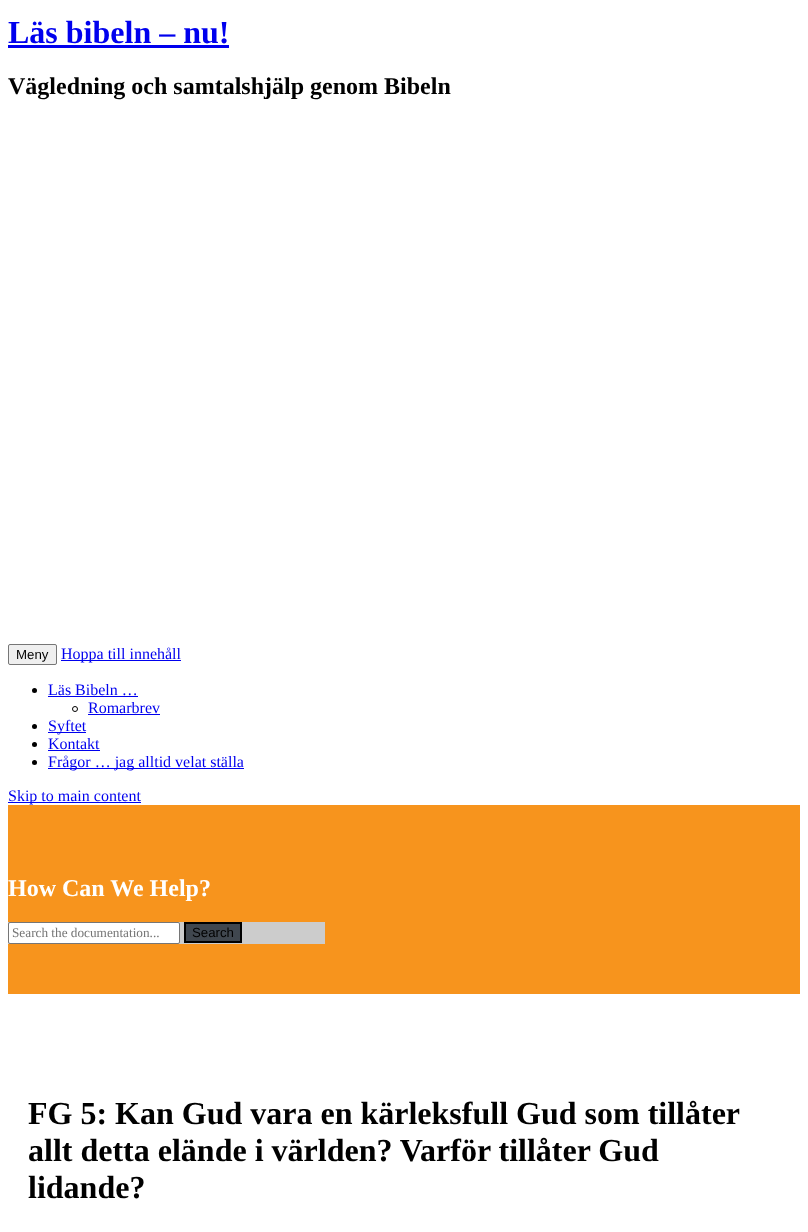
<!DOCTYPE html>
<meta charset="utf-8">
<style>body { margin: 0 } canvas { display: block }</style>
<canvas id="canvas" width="808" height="1232"></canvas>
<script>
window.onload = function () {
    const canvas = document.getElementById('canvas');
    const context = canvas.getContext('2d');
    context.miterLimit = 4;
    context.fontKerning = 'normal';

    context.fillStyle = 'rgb(255, 255, 255)';
    context.fillRect(0, 0, 808, 1232);
    context.fillStyle = 'rgb(0, 0, 238)';
    context.fillRect(8, 45, 221, 3);
    context.fillStyle = 'rgb(239, 239, 239)';
    context.beginPath();
    context.roundRect(8.5, 644.5, 48, 20, 1.5);
    context.fill();
    context.strokeStyle = 'rgb(118, 118, 118)';
    context.stroke();
    context.fillStyle = 'rgb(0, 0, 238)';
    context.fillRect(61, 660, 120, 1);
    context.fillStyle = 'rgb(0, 0, 0)';
    context.beginPath();
    context.arc(34.5, 690.5, 2.5, 0, 2 * Math.PI);
    context.fill();
    context.fillStyle = 'rgb(0, 0, 238)';
    context.fillRect(48, 696, 90, 1);
    context.beginPath();
    context.arc(75, 709, 2.5, 0, 2 * Math.PI);
    context.strokeStyle = 'rgb(0, 0, 0)';
    context.stroke();
    context.fillRect(88, 714, 72, 1);
    context.fillStyle = 'rgb(0, 0, 0)';
    context.beginPath();
    context.arc(34.5, 726.5, 2.5, 0, 2 * Math.PI);
    context.fill();
    context.fillStyle = 'rgb(0, 0, 238)';
    context.fillRect(48, 732, 38, 1);
    context.fillStyle = 'rgb(0, 0, 0)';
    context.beginPath();
    context.arc(34.5, 744.5, 2.5, 0, 2 * Math.PI);
    context.fill();
    context.fillStyle = 'rgb(0, 0, 238)';
    context.fillRect(48, 750, 52, 1);
    context.fillStyle = 'rgb(0, 0, 0)';
    context.beginPath();
    context.arc(34.5, 762.5, 2.5, 0, 2 * Math.PI);
    context.fill();
    context.fillStyle = 'rgb(0, 0, 238)';
    context.fillRect(48, 768, 196, 1);
    context.fillRect(8, 802, 133, 1);
    context.fillStyle = 'rgb(247, 148, 29)';
    context.fillRect(8, 805, 792, 189);
    context.fillStyle = 'rgb(204, 204, 204)';
    context.fillRect(8, 922, 317, 22);
    context.fillStyle = 'rgb(255, 255, 255)';
    context.beginPath();
    context.roundRect(8.5, 922.5, 171, 21, 1.5);
    context.fill();
    context.strokeStyle = 'rgb(118, 118, 118)';
    context.stroke();
    context.fillStyle = 'rgb(64, 71, 79)';
    context.beginPath();
    context.rect(185, 923, 56, 19);
    context.fill();
    context.strokeStyle = 'rgb(0, 0, 0)';
    context.lineWidth = 2;
    context.stroke();
    context.font = 'bold 32px Liberation Serif';
    context.fillStyle = 'rgb(0, 0, 238)';
    context.fillText('Läs bibeln – nu!', 8, 43);
    context.font = 'bold 24px Liberation Serif';
    context.fillStyle = 'rgb(0, 0, 0)';
    context.fillText('Vägledning och samtalshjälp genom Bibeln', 8, 94);
    context.font = '13.25px Liberation Sans';
    context.fillText('Meny', 16, 659);
    context.font = '16px Liberation Serif';
    context.fillStyle = 'rgb(0, 0, 238)';
    context.fillText('Hoppa till innehåll', 61, 659);
    context.fillText('Läs Bibeln …', 48, 695);
    context.fillText('Romarbrev', 88, 713);
    context.fillText('Syftet', 48, 731);
    context.fillText('Kontakt', 48, 749);
    context.fillText('Frågor … jag alltid velat ställa', 48, 767);
    context.fillText('Skip to main content', 8, 801);
    context.font = 'bold 24px Liberation Serif';
    context.fillStyle = 'rgb(255, 255, 255)';
    context.fillText('How Can We Help?', 8, 896);
    context.font = '13.25px Liberation Serif';
    context.fillStyle = 'rgb(117, 117, 117)';
    context.fillText('Search the documentation...', 12, 937);
    context.font = '13.25px Liberation Sans';
    context.fillStyle = 'rgb(0, 0, 0)';
    context.fillText('Search', 192, 937);
    context.font = 'bold 32px Liberation Serif';
    context.fillText('FG 5: Kan Gud vara en kärleksfull Gud som tillåter', 28, 1124);
    context.fillText('allt detta elände i världen? Varför tillåter Gud', 28, 1161);
    context.fillText('lidande?', 28, 1198);
};
</script>
